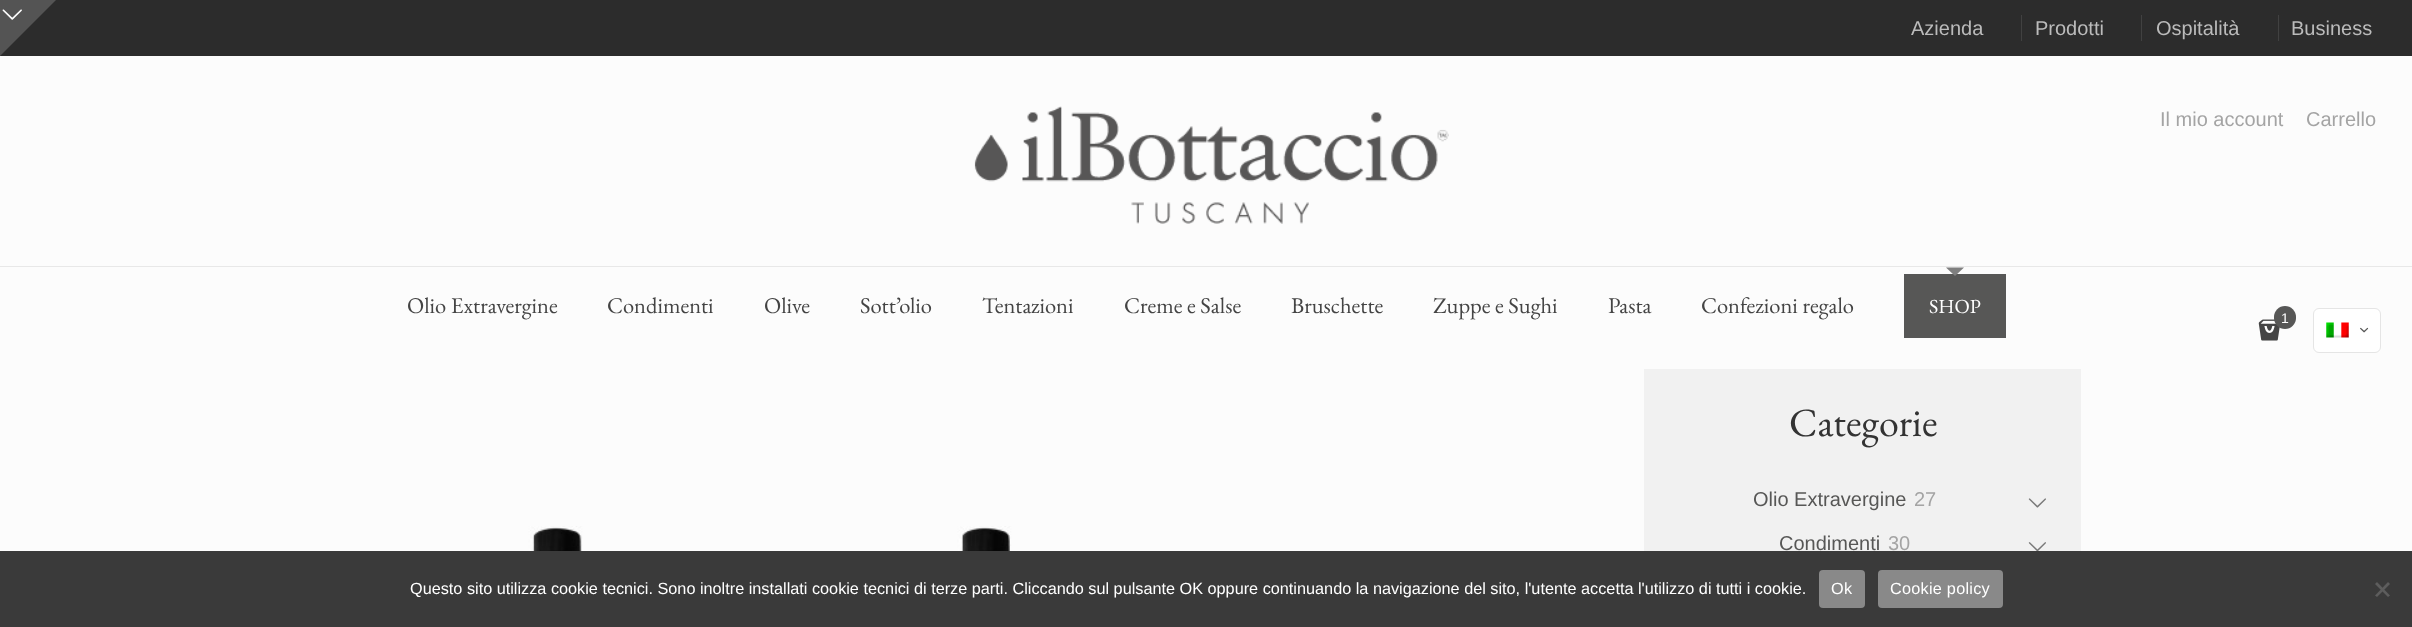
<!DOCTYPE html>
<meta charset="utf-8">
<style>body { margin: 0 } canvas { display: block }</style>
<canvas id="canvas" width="2412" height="627"></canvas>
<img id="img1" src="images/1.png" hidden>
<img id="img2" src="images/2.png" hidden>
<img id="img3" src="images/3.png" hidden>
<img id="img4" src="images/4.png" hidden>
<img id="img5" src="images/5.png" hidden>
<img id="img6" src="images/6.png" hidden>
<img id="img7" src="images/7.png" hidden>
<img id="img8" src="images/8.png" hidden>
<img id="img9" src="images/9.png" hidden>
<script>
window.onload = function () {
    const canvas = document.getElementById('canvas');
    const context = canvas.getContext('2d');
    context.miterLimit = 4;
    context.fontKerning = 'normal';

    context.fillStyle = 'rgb(252, 252, 252)';
    context.fillRect(0, 0, 2412, 627);
    context.fillStyle = 'rgb(44, 44, 44)';
    context.fillRect(0, 0, 2412, 56);
    context.fillStyle = 'rgb(84, 84, 84)';
    context.beginPath();
    context.moveTo(0, 0);
    context.lineTo(56, 0);
    context.lineTo(0, 56);
    context.closePath();
    context.fill();
    context.drawImage(document.getElementById('img1'), 2, 9, 20, 11);
    context.fillStyle = 'rgb(65, 65, 65)';
    context.fillRect(2021, 15, 1, 26);
    context.fillRect(2141, 15, 1, 26);
    context.fillRect(2278, 15, 1, 26);
    context.fillStyle = 'rgb(232, 232, 232)';
    context.fillRect(0, 266, 2412, 1);
    context.drawImage(document.getElementById('img2'), 974, 106, 475, 118);
    context.fillStyle = 'rgb(87, 87, 86)';
    context.fillRect(1904, 274, 102, 64);
    context.fillStyle = 'rgb(127, 127, 127)';
    context.beginPath();
    context.moveTo(1946, 267.5);
    context.lineTo(1964, 267.5);
    context.lineTo(1955, 276);
    context.closePath();
    context.fill();
    context.drawImage(document.getElementById('img3'), 2258, 319, 22, 22);
    context.fillStyle = 'rgb(87, 87, 86)';
    context.beginPath();
    context.roundRect(2274, 306, 22, 23, 11);
    context.fill();
    context.fillStyle = 'rgb(255, 255, 255)';
    context.beginPath();
    context.roundRect(2313.5, 308.5, 67, 44, 5.5);
    context.fill();
    context.strokeStyle = 'rgb(229, 229, 229)';
    context.stroke();
    context.drawImage(document.getElementById('img4'), 2326, 322, 23, 16);
    context.drawImage(document.getElementById('img5'), 2360, 327, 9, 6);
    context.drawImage(document.getElementById('img6'), 522, 526, 71, 25);
    context.drawImage(document.getElementById('img7'), 952, 526, 67, 25);
    context.fillStyle = 'rgb(241, 241, 241)';
    context.fillRect(1644, 369, 437, 182);
    context.drawImage(document.getElementById('img8'), 2028, 498, 18, 10);
    context.drawImage(document.getElementById('img9'), 2028, 542, 18, 9);
    context.fillStyle = 'rgb(58, 58, 58)';
    context.fillRect(0, 551, 2412, 76);
    context.fillStyle = 'rgb(137, 137, 137)';
    context.beginPath();
    context.roundRect(1819, 570, 46, 38, 4);
    context.fill();
    context.beginPath();
    context.roundRect(1878, 570, 125, 38, 4);
    context.fill();
    context.fillStyle = 'rgb(93, 93, 93)';
    context.beginPath();
    context.moveTo(2388, 582);
    context.lineTo(2390, 584);
    context.lineTo(2377, 597);
    context.lineTo(2375, 595.5);
    context.closePath();
    context.fill();
    context.beginPath();
    context.moveTo(2375, 584);
    context.lineTo(2377, 582);
    context.lineTo(2390, 595.5);
    context.lineTo(2388, 597);
    context.closePath();
    context.fill();
    context.font = '20px Liberation Sans';
    context.fillStyle = 'rgb(187, 187, 187)';
    context.fillText('Azienda', 1911, 35);
    context.fillText('Prodotti', 2035, 35);
    context.fillText('Ospitalità', 2156, 35);
    context.fillText('Business', 2291, 35);
    context.fillStyle = 'rgb(164, 164, 164)';
    context.fillText('Il mio account', 2160, 126);
    context.fillText('Carrello', 2306, 126);
    context.font = '22.5px EB Garamond';
    context.fillStyle = 'rgb(68, 68, 68)';
    context.fillText('Olio Extravergine', 407, 313);
    context.fillText('Condimenti', 607, 313);
    context.fillText('Olive', 764, 313);
    context.fillText('Sott’olio', 860, 313);
    context.fillText('Tentazioni', 982, 313);
    context.fillText('Creme e Salse', 1124, 313);
    context.fillText('Bruschette', 1291, 313);
    context.fillText('Zuppe e Sughi', 1433, 313);
    context.fillText('Pasta', 1608, 313);
    context.fillText('Confezioni regalo', 1701, 313);
    context.font = '20px EB Garamond';
    context.fillStyle = 'rgb(255, 255, 255)';
    context.fillText('SHOP', 1929, 313);
    context.font = '14px Liberation Sans';
    context.fillText('1', 2281, 323);
    context.font = '40px EB Garamond';
    context.fillStyle = 'rgb(51, 51, 51)';
    context.fillText('Categorie', 1789, 436);
    context.font = '20px Liberation Sans';
    context.fillStyle = 'rgb(87, 87, 86)';
    context.fillText('Olio Extravergine', 1753, 506);
    context.fillStyle = 'rgb(164, 164, 164)';
    context.fillText('27', 1914, 506);
    context.fillStyle = 'rgb(87, 87, 86)';
    context.fillText('Condimenti', 1779, 550);
    context.fillStyle = 'rgb(164, 164, 164)';
    context.fillText('30', 1888, 550);
    context.font = '16.25px Liberation Sans';
    context.fillStyle = 'rgb(255, 255, 255)';
    context.fillText('Questo sito utilizza cookie tecnici. Sono inoltre installati cookie tecnici di terze parti. Cliccando sul pulsante OK oppure continuando la navigazione del sito, l\'utente accetta l\'utilizzo di tutti i cookie.', 410, 594);
    context.letterSpacing = '0.25px';
    context.fillText('Ok', 1831, 594);
    context.fillText('Cookie policy', 1890, 594);
};
</script>
